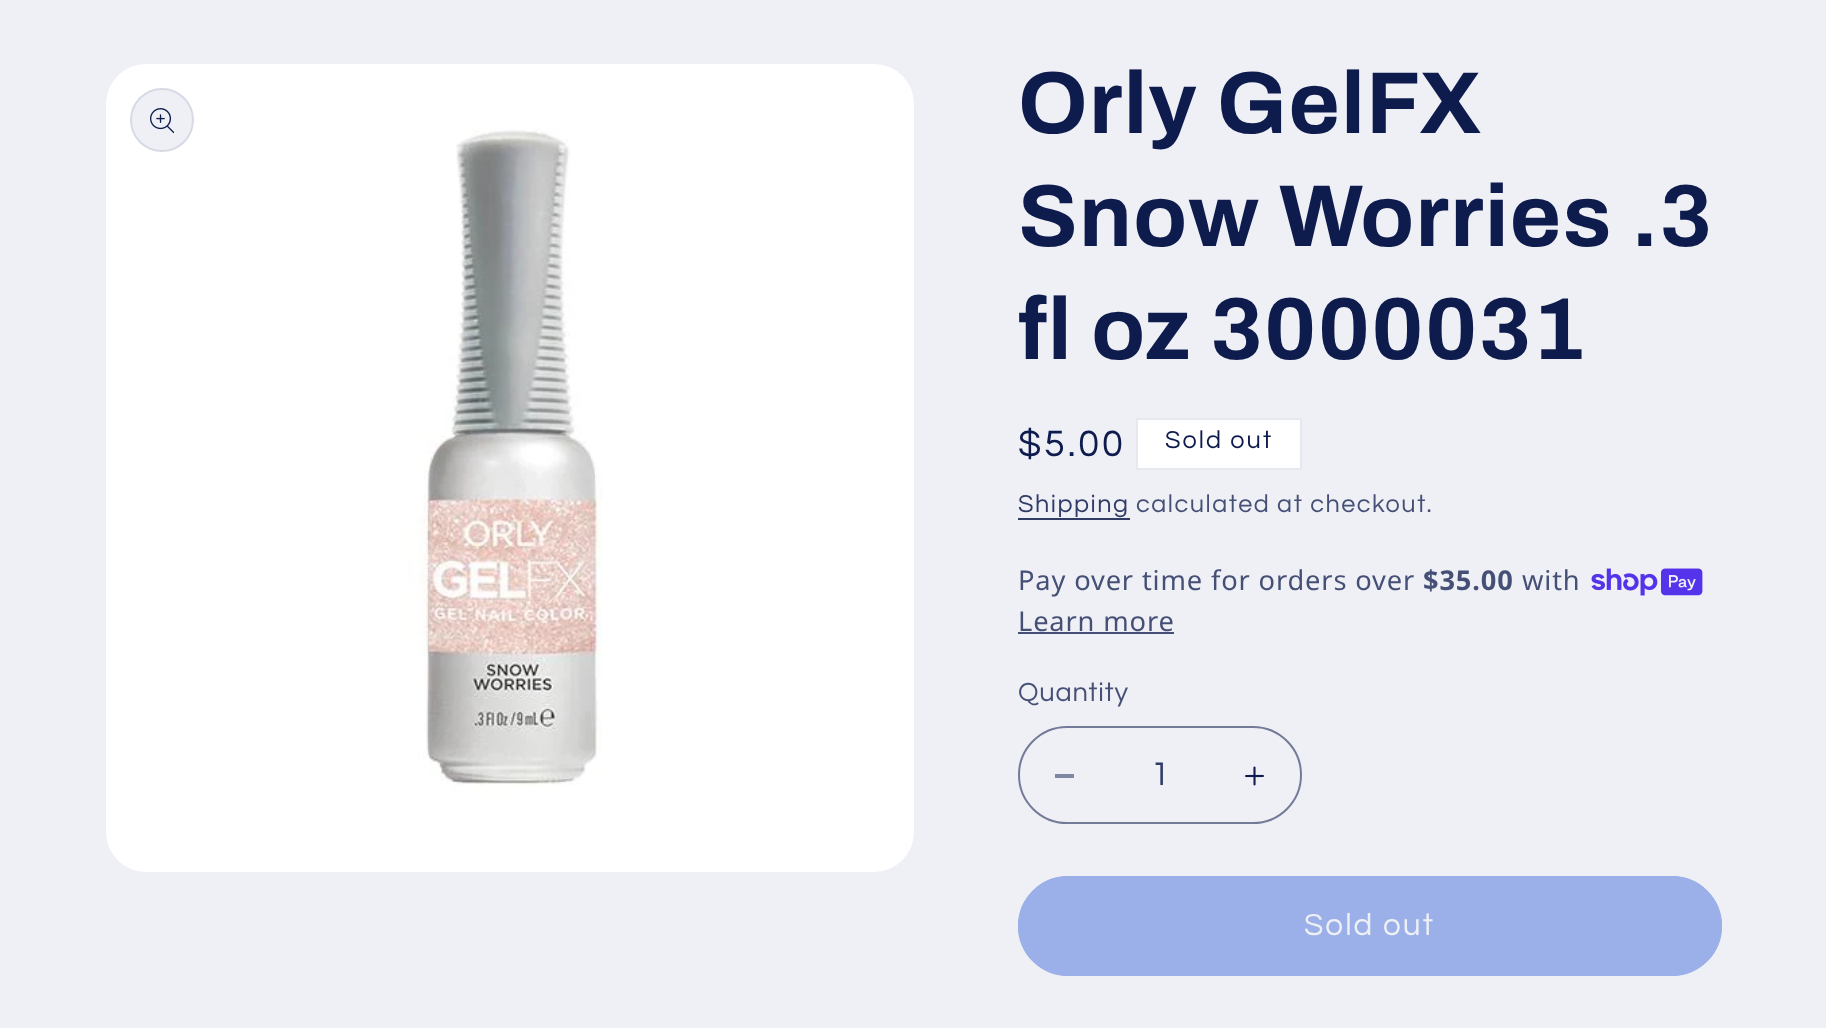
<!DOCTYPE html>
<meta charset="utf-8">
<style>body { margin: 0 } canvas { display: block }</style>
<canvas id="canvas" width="1826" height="1028"></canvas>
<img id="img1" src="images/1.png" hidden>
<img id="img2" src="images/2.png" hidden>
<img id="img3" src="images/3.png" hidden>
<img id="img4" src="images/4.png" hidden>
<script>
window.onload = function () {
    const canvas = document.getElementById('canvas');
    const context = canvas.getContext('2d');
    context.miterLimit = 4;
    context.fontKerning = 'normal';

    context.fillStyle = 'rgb(239, 240, 245)';
    context.fillRect(0, 0, 1826, 1028);
    context.drawImage(document.getElementById('img1'), 106, 64, 808, 808);
    context.beginPath();
    context.arc(162, 120, 32, 0, 2 * Math.PI);
    context.fill();
    context.beginPath();
    context.arc(162, 120, 31, 0, 2 * Math.PI);
    context.strokeStyle = 'rgba(14, 27, 77, 0.1)';
    context.lineWidth = 2;
    context.stroke();
    context.drawImage(document.getElementById('img2'), 150, 108, 24, 26);
    context.fillStyle = 'rgb(255, 255, 255)';
    context.beginPath();
    context.rect(1137, 419, 164, 50);
    context.fill();
    context.strokeStyle = 'rgb(231, 232, 237)';
    context.stroke();
    context.fillStyle = 'rgb(48, 59, 102)';
    context.fillRect(1018, 518, 112, 2);
    context.drawImage(document.getElementById('img3'), 1591, 568, 112, 28);
    context.fillStyle = 'rgb(70, 80, 119)';
    context.fillRect(1018, 632, 156, 2);
    context.fillStyle = 'rgb(127, 134, 161)';
    context.fillRect(1055, 774, 19, 4);
    context.drawImage(document.getElementById('img4'), 1245, 766, 19, 20);
    context.beginPath();
    context.roundRect(1019, 727, 282, 96, 48);
    context.strokeStyle = 'rgb(115, 123, 153)';
    context.stroke();
    context.fillStyle = 'rgb(155, 176, 232)';
    context.beginPath();
    context.roundRect(1018, 876, 704, 100, 50);
    context.fill();
    context.beginPath();
    context.roundRect(1019, 877, 702, 98, 49);
    context.strokeStyle = 'rgb(155, 176, 232)';
    context.stroke();
    context.letterSpacing = '1.3px';
    context.font = 'bold 88px Archivo';
    context.fillStyle = 'rgb(14, 27, 77)';
    context.fillText('Orly GelFX', 1018, 133);
    context.fillText('Snow Worries .3', 1018, 246);
    context.fillText('fl oz 3000031', 1018, 359);
    context.letterSpacing = '2.75px';
    context.font = '38px Questrial';
    context.fillText('$5.00', 1018, 456);
    context.letterSpacing = '2px';
    context.font = '25.25px Questrial';
    context.fillText('Sold out', 1165, 448);
    context.letterSpacing = '1.5px';
    context.fillStyle = 'rgb(48, 59, 102)';
    context.fillText('Shipping', 1018, 512);
    context.fillStyle = 'rgb(70, 80, 119)';
    context.fillText('calculated at checkout.', 1136, 512);
    context.letterSpacing = '0.85px';
    context.font = '27.25px Noto Sans';
    context.fillText('Pay over time for orders over', 1018, 590);
    context.font = 'bold 27.25px Noto Sans';
    context.fillText('$35.00', 1423, 590);
    context.font = '27.25px Noto Sans';
    context.fillText('with', 1522, 590);
    context.fillText('Learn more', 1018, 631);
    context.font = '27.25px Questrial';
    context.fillText('Quantity', 1018, 701);
    context.letterSpacing = '0px';
    context.font = '34px Questrial';
    context.fillStyle = 'rgb(48, 59, 102)';
    context.fillText('1', 1151, 785);
    context.letterSpacing = '2px';
    context.font = '31.5px Questrial';
    context.fillStyle = 'rgb(239, 240, 245)';
    context.fillText('Sold out', 1304, 935);
};
</script>
